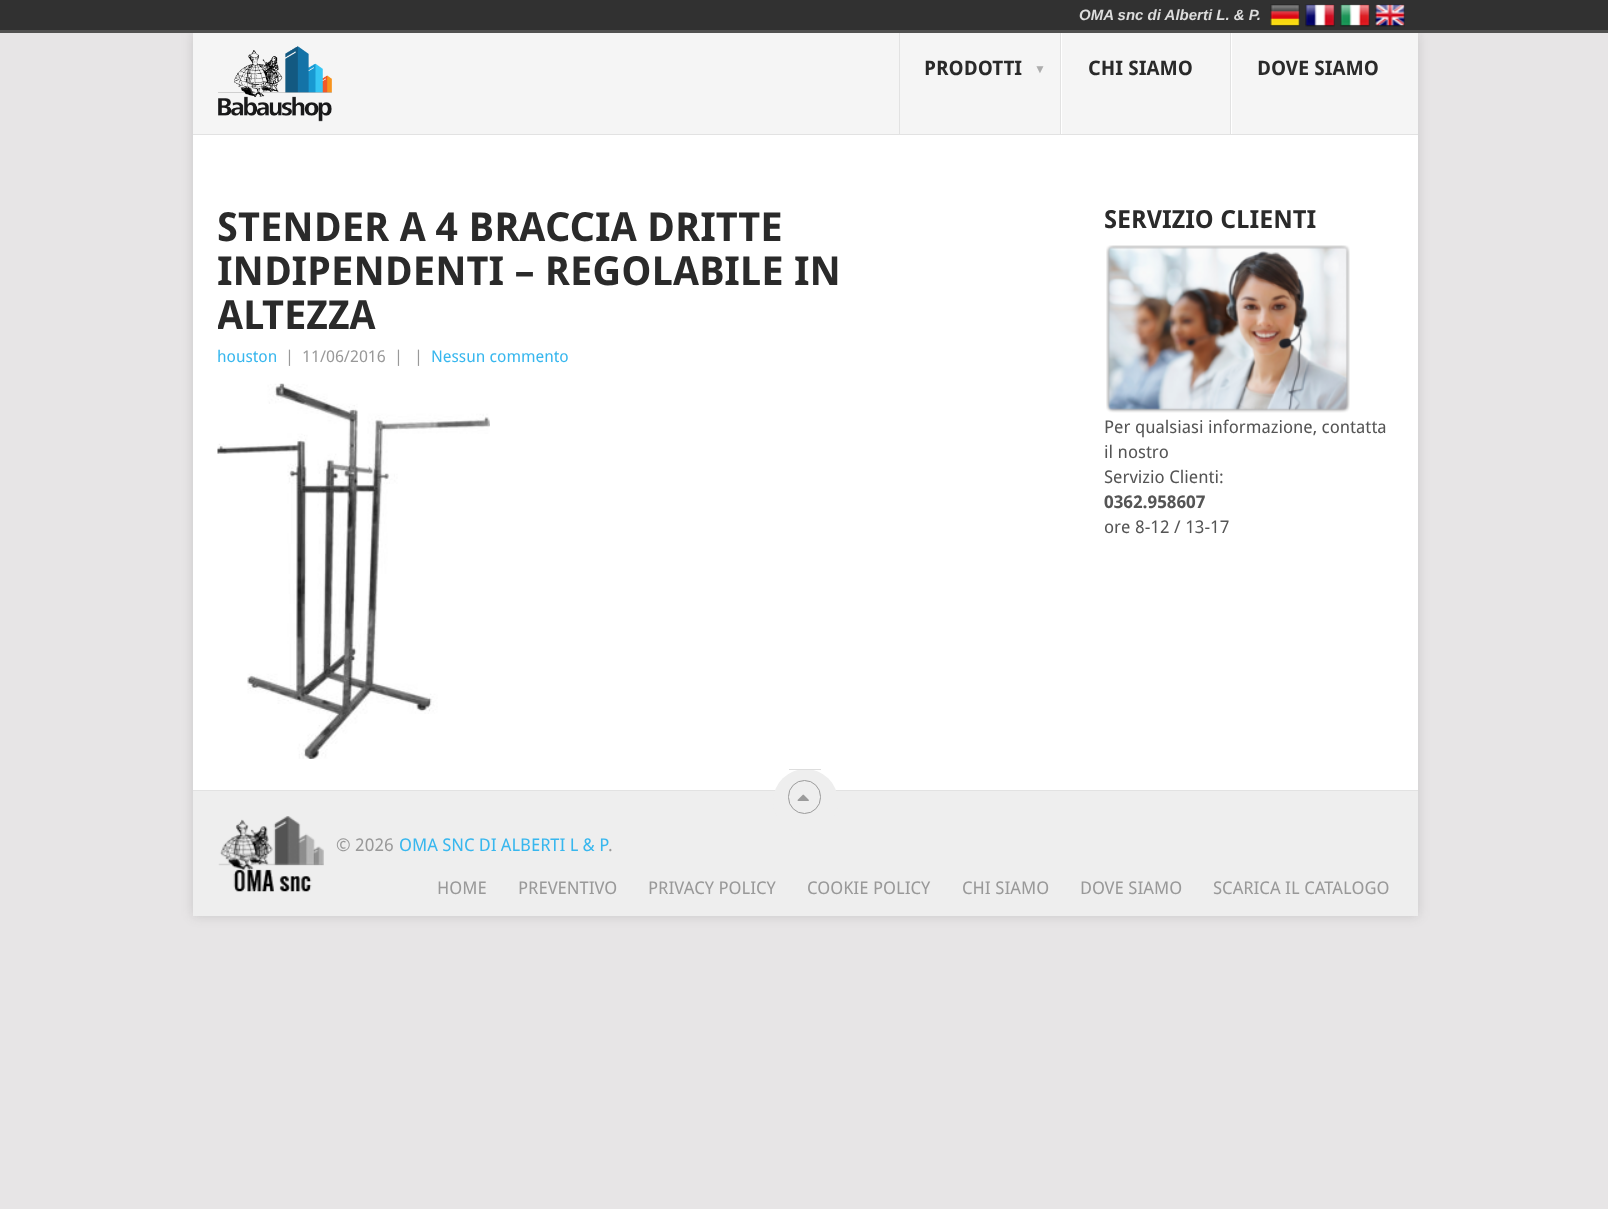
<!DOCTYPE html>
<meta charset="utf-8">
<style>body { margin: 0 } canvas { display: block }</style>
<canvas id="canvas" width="1608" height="1209"></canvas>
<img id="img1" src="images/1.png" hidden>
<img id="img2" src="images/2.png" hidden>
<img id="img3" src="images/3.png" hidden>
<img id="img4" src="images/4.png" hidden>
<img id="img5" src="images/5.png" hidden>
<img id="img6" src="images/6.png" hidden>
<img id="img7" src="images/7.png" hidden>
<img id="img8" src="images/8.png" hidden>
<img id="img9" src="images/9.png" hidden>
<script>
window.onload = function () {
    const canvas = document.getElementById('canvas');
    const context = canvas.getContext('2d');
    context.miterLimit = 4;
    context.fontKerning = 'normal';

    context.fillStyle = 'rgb(231, 229, 230)';
    context.fillRect(0, 0, 1608, 1209);
    context.fillStyle = 'rgba(50, 50, 50, 0.17)';
    context.filter = 'blur(6px)';
    context.beginPath();
    context.rect(193, 33, 1225, 883);
    context.fill();
    context.filter = 'none';
    context.fillStyle = 'rgb(255, 255, 255)';
    context.fillRect(193, 135, 1225, 655);
    context.fillStyle = 'rgb(49, 49, 49)';
    context.fillRect(0, 0, 1608, 30);
    context.fillStyle = 'rgb(81, 81, 80)';
    context.fillRect(0, 30, 1608, 3);
    context.drawImage(document.getElementById('img1'), 1270, 4, 30, 23);
    context.drawImage(document.getElementById('img2'), 1305, 4, 30, 23);
    context.drawImage(document.getElementById('img3'), 1340, 4, 30, 23);
    context.drawImage(document.getElementById('img4'), 1375, 4, 30, 23);
    context.fillStyle = 'rgb(245, 245, 245)';
    context.fillRect(193, 33, 1225, 101);
    context.drawImage(document.getElementById('img5'), 218, 46, 114, 76);
    context.fillStyle = 'rgb(226, 226, 226)';
    context.fillRect(1060, 33, 1, 102);
    context.fillRect(899, 33, 1, 102);
    context.fillRect(1230, 33, 1, 102);
    context.fillStyle = 'rgb(255, 255, 255)';
    context.fillRect(1061, 33, 1, 102);
    context.fillRect(1231, 33, 1, 102);
    context.fillStyle = 'rgb(226, 226, 226)';
    context.fillRect(193, 134, 1225, 1);
    context.drawImage(document.getElementById('img6'), 217, 383, 273, 376);
    context.drawImage(document.getElementById('img7'), 1106, 245, 244, 168);
    context.fillStyle = 'rgb(238, 238, 238)';
    context.fillRect(193, 791, 1225, 125);
    context.fillStyle = 'rgb(226, 226, 226)';
    context.fillRect(193, 790, 1225, 1);
    context.fillStyle = 'rgb(238, 238, 238)';
    context.beginPath();
    context.arc(805.5, 801.5, 32.5, 0, 2 * Math.PI);
    context.fill();
    context.fillStyle = 'rgb(221, 221, 221)';
    context.fillRect(789, 769, 32, 1);
    context.beginPath();
    context.roundRect(788.5, 780.5, 32, 33, 16);
    context.strokeStyle = 'rgb(155, 155, 155)';
    context.stroke();
    context.drawImage(document.getElementById('img8'), 797, 794, 12, 7);
    context.drawImage(document.getElementById('img9'), 218, 816, 106, 76);
    context.font = 'italic bold 15px Liberation Sans';
    context.fillText('OMA snc di Alberti L. & P.', 1079, 20);
    context.font = 'bold 20px Droid Sans';
    context.fillStyle = 'rgb(42, 42, 42)';
    context.fillText('PRODOTTI', 924, 75);
    context.font = 'bold 12px Liberation Sans';
    context.fillStyle = 'rgb(173, 173, 173)';
    context.fillText('▼', 1034, 73);
    context.font = 'bold 20px Droid Sans';
    context.fillStyle = 'rgb(42, 42, 42)';
    context.fillText('CHI SIAMO', 1088, 75);
    context.fillText('DOVE SIAMO', 1257, 75);
    context.font = 'bold 40px Droid Sans';
    context.fillText('STENDER A 4 BRACCIA DRITTE', 217, 241);
    context.fillText('INDIPENDENTI – REGOLABILE IN', 217, 285);
    context.save();
    context.beginPath();
    context.rect(218, 206, 777, 165);
    context.clip();
    context.fillText('ALTEZZA', 217, 329);
    context.restore();
    context.font = '16.25px Droid Sans';
    context.fillStyle = 'rgb(56, 183, 238)';
    context.fillText('houston', 217, 362);
    context.fillStyle = 'rgb(153, 153, 153)';
    context.fillText('|', 285, 362);
    context.fillText('11/06/2016', 302, 362);
    context.fillText('|', 394, 362);
    context.fillText('|', 414, 362);
    context.fillStyle = 'rgb(56, 183, 238)';
    context.fillText('Nessun commento', 431, 362);
    context.font = 'bold 25px Droid Sans';
    context.fillStyle = 'rgb(42, 42, 42)';
    context.fillText('SERVIZIO CLIENTI', 1104, 228);
    context.font = '17.5px Droid Sans';
    context.fillStyle = 'rgb(85, 85, 85)';
    context.fillText('Per qualsiasi informazione, contatta', 1104, 433);
    context.fillText('il nostro', 1104, 458);
    context.fillText('Servizio Clienti:', 1104, 483);
    context.font = 'bold 17.5px Droid Sans';
    context.fillText('0362.958607', 1104, 508);
    context.font = '17.5px Droid Sans';
    context.fillText('ore 8-12 / 13-17', 1104, 533);
    context.fillStyle = 'rgb(153, 153, 153)';
    context.fillText('© 2026', 336, 851);
    context.wordSpacing = '-0.25px';
    context.fillStyle = 'rgb(56, 183, 238)';
    context.fillText('OMA SNC DI ALBERTI L & P', 399, 851);
    context.wordSpacing = '0px';
    context.fillStyle = 'rgb(153, 153, 153)';
    context.fillText('.', 608, 851);
    context.fillText('HOME', 437, 894);
    context.fillText('PREVENTIVO', 518, 894);
    context.fillText('PRIVACY POLICY', 648, 894);
    context.fillText('COOKIE POLICY', 807, 894);
    context.fillText('CHI SIAMO', 962, 894);
    context.fillText('DOVE SIAMO', 1080, 894);
    context.fillText('SCARICA IL CATALOGO', 1213, 894);
};
</script>
